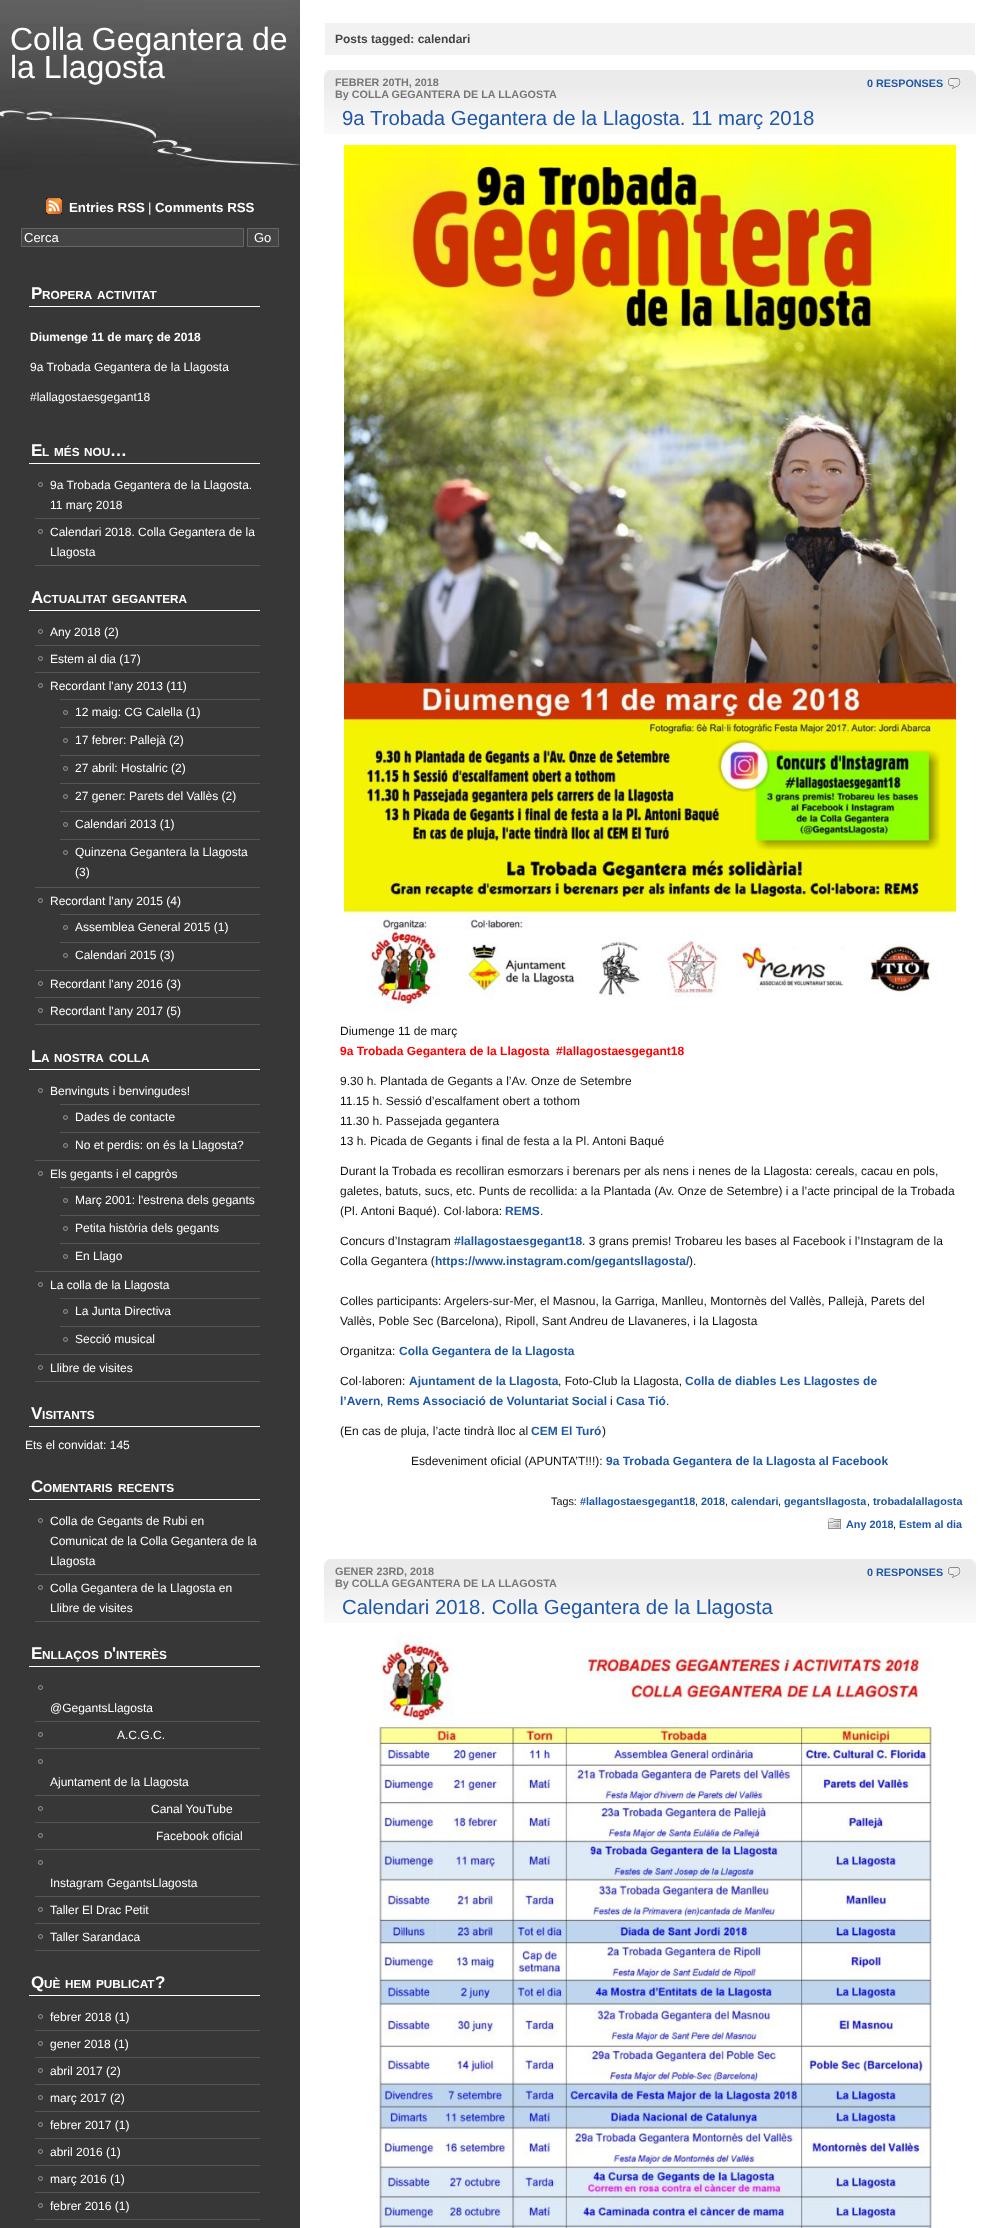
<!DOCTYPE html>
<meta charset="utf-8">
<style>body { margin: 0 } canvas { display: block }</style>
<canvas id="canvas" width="993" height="2228"></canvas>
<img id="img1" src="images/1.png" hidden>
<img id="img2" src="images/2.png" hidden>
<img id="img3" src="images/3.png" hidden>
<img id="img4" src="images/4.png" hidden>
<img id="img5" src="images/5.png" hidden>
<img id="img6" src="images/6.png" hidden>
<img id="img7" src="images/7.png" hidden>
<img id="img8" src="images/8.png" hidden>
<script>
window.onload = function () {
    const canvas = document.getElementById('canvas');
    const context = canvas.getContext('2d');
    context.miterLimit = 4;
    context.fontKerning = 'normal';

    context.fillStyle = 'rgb(255, 255, 255)';
    context.fillRect(0, 0, 993, 2228);
    context.fillStyle = 'rgb(55, 55, 55)';
    context.fillRect(0, 171, 300, 2057);
    context.drawImage(document.getElementById('img1'), 0, 0, 300, 171);
    context.drawImage(document.getElementById('img2'), 46, 198, 16, 16);
    context.fillStyle = 'rgb(68, 68, 68)';
    context.beginPath();
    context.rect(21.5, 228.5, 222, 18);
    context.fill();
    context.strokeStyle = 'rgb(102, 102, 102)';
    context.stroke();
    context.beginPath();
    context.rect(247.5, 228.5, 31, 18);
    context.fill();
    context.stroke();
    context.fillStyle = 'rgb(255, 255, 255)';
    context.fillRect(29, 306, 231, 1);
    context.fillRect(29, 463, 231, 1);
    context.drawImage(document.getElementById('img3'), 38, 482, 5, 5);
    context.fillStyle = 'rgb(85, 85, 85)';
    context.fillRect(35, 518, 225, 1);
    context.drawImage(document.getElementById('img3'), 38, 529, 5, 5);
    context.fillRect(35, 565, 225, 1);
    context.fillStyle = 'rgb(255, 255, 255)';
    context.fillRect(29, 610, 231, 1);
    context.drawImage(document.getElementById('img3'), 38, 629, 5, 5);
    context.fillStyle = 'rgb(85, 85, 85)';
    context.fillRect(35, 645, 225, 1);
    context.drawImage(document.getElementById('img3'), 38, 656, 5, 5);
    context.fillRect(35, 672, 225, 1);
    context.drawImage(document.getElementById('img3'), 38, 683, 5, 5);
    context.fillRect(35, 887, 225, 1);
    context.drawImage(document.getElementById('img3'), 63, 710, 5, 5);
    context.fillRect(60, 699, 200, 1);
    context.drawImage(document.getElementById('img3'), 63, 738, 5, 5);
    context.fillRect(60, 727, 200, 1);
    context.drawImage(document.getElementById('img3'), 63, 766, 5, 5);
    context.fillRect(60, 755, 200, 1);
    context.drawImage(document.getElementById('img3'), 63, 794, 5, 5);
    context.fillRect(60, 783, 200, 1);
    context.drawImage(document.getElementById('img3'), 63, 822, 5, 5);
    context.fillRect(60, 811, 200, 1);
    context.drawImage(document.getElementById('img3'), 63, 850, 5, 5);
    context.fillRect(60, 839, 200, 1);
    context.drawImage(document.getElementById('img3'), 38, 898, 5, 5);
    context.fillRect(35, 970, 225, 1);
    context.drawImage(document.getElementById('img3'), 63, 925, 5, 5);
    context.fillRect(60, 914, 200, 1);
    context.drawImage(document.getElementById('img3'), 63, 953, 5, 5);
    context.fillRect(60, 942, 200, 1);
    context.drawImage(document.getElementById('img3'), 38, 981, 5, 5);
    context.fillRect(35, 997, 225, 1);
    context.drawImage(document.getElementById('img3'), 38, 1008, 5, 5);
    context.fillRect(35, 1024, 225, 1);
    context.fillStyle = 'rgb(255, 255, 255)';
    context.fillRect(29, 1069, 231, 1);
    context.drawImage(document.getElementById('img3'), 38, 1088, 5, 5);
    context.fillStyle = 'rgb(85, 85, 85)';
    context.fillRect(35, 1160, 225, 1);
    context.drawImage(document.getElementById('img3'), 63, 1115, 5, 5);
    context.fillRect(60, 1104, 200, 1);
    context.drawImage(document.getElementById('img3'), 63, 1143, 5, 5);
    context.fillRect(60, 1132, 200, 1);
    context.drawImage(document.getElementById('img3'), 38, 1171, 5, 5);
    context.fillRect(35, 1271, 225, 1);
    context.drawImage(document.getElementById('img3'), 63, 1198, 5, 5);
    context.fillRect(60, 1187, 200, 1);
    context.drawImage(document.getElementById('img3'), 63, 1226, 5, 5);
    context.fillRect(60, 1215, 200, 1);
    context.drawImage(document.getElementById('img3'), 63, 1254, 5, 5);
    context.fillRect(60, 1243, 200, 1);
    context.drawImage(document.getElementById('img3'), 38, 1282, 5, 5);
    context.fillRect(35, 1354, 225, 1);
    context.drawImage(document.getElementById('img3'), 63, 1309, 5, 5);
    context.fillRect(60, 1298, 200, 1);
    context.drawImage(document.getElementById('img3'), 63, 1337, 5, 5);
    context.fillRect(60, 1326, 200, 1);
    context.drawImage(document.getElementById('img3'), 38, 1365, 5, 5);
    context.fillRect(35, 1381, 225, 1);
    context.fillStyle = 'rgb(255, 255, 255)';
    context.fillRect(29, 1426, 231, 1);
    context.fillRect(29, 1499, 231, 1);
    context.drawImage(document.getElementById('img3'), 38, 1518, 5, 5);
    context.fillStyle = 'rgb(85, 85, 85)';
    context.fillRect(35, 1574, 225, 1);
    context.drawImage(document.getElementById('img3'), 38, 1585, 5, 5);
    context.fillRect(35, 1621, 225, 1);
    context.fillStyle = 'rgb(255, 255, 255)';
    context.fillRect(29, 1666, 231, 1);
    context.drawImage(document.getElementById('img3'), 38, 1685, 5, 5);
    context.fillStyle = 'rgb(85, 85, 85)';
    context.fillRect(35, 1721, 225, 1);
    context.drawImage(document.getElementById('img3'), 38, 1732, 5, 5);
    context.fillRect(35, 1748, 225, 1);
    context.drawImage(document.getElementById('img3'), 38, 1759, 5, 5);
    context.fillRect(35, 1795, 225, 1);
    context.drawImage(document.getElementById('img3'), 38, 1806, 5, 5);
    context.fillRect(35, 1822, 225, 1);
    context.drawImage(document.getElementById('img3'), 38, 1833, 5, 5);
    context.fillRect(35, 1849, 225, 1);
    context.drawImage(document.getElementById('img3'), 38, 1860, 5, 5);
    context.fillRect(35, 1896, 225, 1);
    context.drawImage(document.getElementById('img3'), 38, 1907, 5, 5);
    context.fillRect(35, 1923, 225, 1);
    context.drawImage(document.getElementById('img3'), 38, 1934, 5, 5);
    context.fillRect(35, 1950, 225, 1);
    context.fillStyle = 'rgb(255, 255, 255)';
    context.fillRect(29, 1995, 231, 1);
    context.drawImage(document.getElementById('img3'), 38, 2014, 5, 5);
    context.fillStyle = 'rgb(85, 85, 85)';
    context.fillRect(35, 2030, 225, 1);
    context.drawImage(document.getElementById('img3'), 38, 2041, 5, 5);
    context.fillRect(35, 2057, 225, 1);
    context.drawImage(document.getElementById('img3'), 38, 2068, 5, 5);
    context.fillRect(35, 2084, 225, 1);
    context.drawImage(document.getElementById('img3'), 38, 2095, 5, 5);
    context.fillRect(35, 2111, 225, 1);
    context.drawImage(document.getElementById('img3'), 38, 2122, 5, 5);
    context.fillRect(35, 2138, 225, 1);
    context.drawImage(document.getElementById('img3'), 38, 2149, 5, 5);
    context.fillRect(35, 2165, 225, 1);
    context.drawImage(document.getElementById('img3'), 38, 2176, 5, 5);
    context.fillRect(35, 2192, 225, 1);
    context.drawImage(document.getElementById('img3'), 38, 2203, 5, 5);
    context.fillRect(35, 2219, 225, 1);
    context.fillStyle = 'rgb(242, 242, 242)';
    context.fillRect(325, 23, 650, 32);
    context.drawImage(document.getElementById('img4'), 324, 70, 652, 64);
    context.drawImage(document.getElementById('img5'), 947, 78, 14, 11);
    context.drawImage(document.getElementById('img6'), 344, 145, 612, 866);
    context.drawImage(document.getElementById('img7'), 828, 1518, 13, 11);
    context.drawImage(document.getElementById('img4'), 324, 1559, 652, 64);
    context.drawImage(document.getElementById('img5'), 947, 1567, 14, 11);
    context.drawImage(document.getElementById('img8'), 368, 1634, 564, 594);
    context.font = '32px Liberation Sans';
    context.fillStyle = 'rgb(255, 255, 255)';
    context.fillText('Colla Gegantera de', 10, 50);
    context.fillText('la Llagosta', 10, 78);
    context.font = 'bold 13.25px Liberation Sans';
    context.fillText('Entries RSS', 69, 212);
    context.font = '13.25px Liberation Sans';
    context.fillText('|', 148, 212);
    context.font = 'bold 13.25px Liberation Sans';
    context.fillText('Comments RSS', 155, 212);
    context.font = '13px Liberation Sans';
    context.fillText('Cerca', 24, 242);
    context.fillText('Go', 254, 242);
    context.font = 'bold 17px Liberation Sans';
    context.fillText('P', 31, 299);
    context.font = 'bold 11.75px Liberation Sans';
    context.fillText('ROPERA', 42, 299);
    context.fillText('ACTIVITAT', 97, 299);
    context.font = 'bold 12px Liberation Sans';
    context.fillText('Diumenge 11 de març de 2018', 30, 341);
    context.font = '12px Liberation Sans';
    context.fillText('9a Trobada Gegantera de la Llagosta', 30, 371);
    context.fillText('#lallagostaesgegant18', 30, 401);
    context.font = 'bold 17px Liberation Sans';
    context.fillText('E', 31, 456);
    context.font = 'bold 11.75px Liberation Sans';
    context.fillText('L', 42, 456);
    context.fillText('MÉS', 54, 456);
    context.fillText('NOU', 84, 456);
    context.font = 'bold 17px Liberation Sans';
    context.fillText('…', 110, 456);
    context.font = '12px Liberation Sans';
    context.fillText('9a Trobada Gegantera de la Llagosta.', 50, 489);
    context.fillText('11 març 2018', 50, 509);
    context.fillText('Calendari 2018. Colla Gegantera de la', 50, 536);
    context.fillText('Llagosta', 50, 556);
    context.font = 'bold 17px Liberation Sans';
    context.fillText('A', 31, 603);
    context.font = 'bold 11.75px Liberation Sans';
    context.fillText('CTUALITAT', 43, 603);
    context.fillText('GEGANTERA', 112, 603);
    context.font = '12px Liberation Sans';
    context.fillText('Any 2018 (2)', 50, 636);
    context.fillText('Estem al dia (17)', 50, 663);
    context.fillText('Recordant l\'any 2013 (11)', 50, 690);
    context.fillText('12 maig: CG Calella (1)', 75, 716);
    context.fillText('17 febrer: Pallejà (2)', 75, 744);
    context.fillText('27 abril: Hostalric (2)', 75, 772);
    context.fillText('27 gener: Parets del Vallès (2)', 75, 800);
    context.fillText('Calendari 2013 (1)', 75, 828);
    context.fillText('Quinzena Gegantera la Llagosta', 75, 856);
    context.fillText('(3)', 75, 876);
    context.fillText('Recordant l\'any 2015 (4)', 50, 905);
    context.fillText('Assemblea General 2015 (1)', 75, 931);
    context.fillText('Calendari 2015 (3)', 75, 959);
    context.fillText('Recordant l\'any 2016 (3)', 50, 988);
    context.fillText('Recordant l\'any 2017 (5)', 50, 1015);
    context.font = 'bold 17px Liberation Sans';
    context.fillText('L', 31, 1062);
    context.font = 'bold 11.75px Liberation Sans';
    context.fillText('A', 41, 1062);
    context.fillText('NOSTRA', 54, 1062);
    context.fillText('COLLA', 109, 1062);
    context.font = '12px Liberation Sans';
    context.fillText('Benvinguts i benvingudes!', 50, 1095);
    context.fillText('Dades de contacte', 75, 1121);
    context.fillText('No et perdis: on és la Llagosta?', 75, 1149);
    context.fillText('Els gegants i el capgròs', 50, 1178);
    context.fillText('Març 2001: l\'estrena dels gegants', 75, 1204);
    context.fillText('Petita història dels gegants', 75, 1232);
    context.fillText('En Llago', 75, 1260);
    context.fillText('La colla de la Llagosta', 50, 1289);
    context.fillText('La Junta Directiva', 75, 1315);
    context.fillText('Secció musical', 75, 1343);
    context.fillText('Llibre de visites', 50, 1372);
    context.font = 'bold 17px Liberation Sans';
    context.fillText('V', 31, 1419);
    context.font = 'bold 11.75px Liberation Sans';
    context.fillText('ISITANTS', 42, 1419);
    context.font = '12px Liberation Sans';
    context.fillText('Ets el convidat: 145', 25, 1449);
    context.font = 'bold 17px Liberation Sans';
    context.fillText('C', 31, 1492);
    context.font = 'bold 11.75px Liberation Sans';
    context.fillText('OMENTARIS', 43, 1492);
    context.fillText('RECENTS', 118, 1492);
    context.font = '12px Liberation Sans';
    context.fillText('Colla de Gegants de Rubi en', 50, 1525);
    context.fillText('Comunicat de la Colla Gegantera de la', 50, 1545);
    context.fillText('Llagosta', 50, 1565);
    context.fillText('Colla Gegantera de la Llagosta en', 50, 1592);
    context.fillText('Llibre de visites', 50, 1612);
    context.font = 'bold 17px Liberation Sans';
    context.fillText('E', 31, 1659);
    context.font = 'bold 11.75px Liberation Sans';
    context.fillText('NLLAÇOS', 42, 1659);
    context.fillText('D', 104, 1659);
    context.font = 'bold 17px Liberation Sans';
    context.fillText('\'', 112, 1659);
    context.font = 'bold 11.75px Liberation Sans';
    context.fillText('INTERÈS', 116, 1659);
    context.font = '12px Liberation Sans';
    context.fillText('@GegantsLlagosta', 50, 1712);
    context.fillText('A.C.G.C.', 117, 1739);
    context.fillText('Ajuntament de la Llagosta', 50, 1786);
    context.fillText('Canal YouTube', 151, 1813);
    context.fillText('Facebook oficial', 156, 1840);
    context.fillText('Instagram GegantsLlagosta', 50, 1887);
    context.fillText('Taller El Drac Petit', 50, 1914);
    context.fillText('Taller Sarandaca', 50, 1941);
    context.font = 'bold 17px Liberation Sans';
    context.fillText('Q', 31, 1988);
    context.font = 'bold 11.75px Liberation Sans';
    context.fillText('UÈ', 44, 1988);
    context.fillText('HEM', 65, 1988);
    context.fillText('PUBLICAT', 96, 1988);
    context.font = 'bold 17px Liberation Sans';
    context.fillText('?', 155, 1988);
    context.font = '12px Liberation Sans';
    context.fillText('febrer 2018 (1)', 50, 2021);
    context.fillText('gener 2018 (1)', 50, 2048);
    context.fillText('abril 2017 (2)', 50, 2075);
    context.fillText('març 2017 (2)', 50, 2102);
    context.fillText('febrer 2017 (1)', 50, 2129);
    context.fillText('abril 2016 (1)', 50, 2156);
    context.fillText('març 2016 (1)', 50, 2183);
    context.fillText('febrer 2016 (1)', 50, 2210);
    context.font = 'bold 12px Liberation Sans';
    context.fillStyle = 'rgb(68, 68, 68)';
    context.fillText('Posts tagged: calendari', 335, 43);
    context.font = 'bold 10.8px Liberation Sans';
    context.fillStyle = 'rgb(119, 119, 119)';
    context.fillText('FEBRER 20TH, 2018', 335, 86);
    context.fillStyle = 'rgb(31, 88, 168)';
    context.fillText('0 RESPONSES', 867, 87);
    context.fillStyle = 'rgb(119, 119, 119)';
    context.fillText('By COLLA GEGANTERA DE LA LLAGOSTA', 335, 98);
    context.font = '20.4px Liberation Sans';
    context.fillStyle = 'rgb(31, 88, 168)';
    context.fillText('9a Trobada Gegantera de la Llagosta. 11 març 2018', 342, 125);
    context.font = '12px Liberation Sans';
    context.fillStyle = 'rgb(17, 17, 17)';
    context.fillText('Diumenge 11 de març', 340, 1035);
    context.font = 'bold 12px Liberation Sans';
    context.fillStyle = 'rgb(255, 0, 0)';
    context.fillText('9a Trobada Gegantera de la Llagosta  #lallagostaesgegant18', 340, 1055);
    context.font = '12px Liberation Sans';
    context.fillStyle = 'rgb(17, 17, 17)';
    context.fillText('9.30 h. Plantada de Gegants a l’Av. Onze de Setembre', 340, 1085);
    context.fillText('11.15 h. Sessió d’escalfament obert a tothom', 340, 1105);
    context.fillText('11.30 h. Passejada gegantera', 340, 1125);
    context.fillText('13 h. Picada de Gegants i final de festa a la Pl. Antoni Baqué', 340, 1145);
    context.fillText('Durant la Trobada es recolliran esmorzars i berenars per als nens i nenes de la Llagosta: cereals, cacau en pols,', 340, 1175);
    context.fillText('galetes, batuts, sucs, etc. Punts de recollida: a la Plantada (Av. Onze de Setembre) i a l’acte principal de la Trobada', 340, 1195);
    context.fillText('(Pl. Antoni Baqué). Col·labora:', 340, 1215);
    context.font = 'bold 12px Liberation Sans';
    context.fillStyle = 'rgb(31, 88, 168)';
    context.fillText('REMS', 505, 1215);
    context.font = '12px Liberation Sans';
    context.fillStyle = 'rgb(17, 17, 17)';
    context.fillText('.', 540, 1215);
    context.fillText('Concurs d’Instagram', 340, 1245);
    context.font = 'bold 12px Liberation Sans';
    context.fillStyle = 'rgb(31, 88, 168)';
    context.fillText('#lallagostaesgegant18', 454, 1245);
    context.font = '12px Liberation Sans';
    context.fillStyle = 'rgb(17, 17, 17)';
    context.fillText('. 3 grans premis! Trobareu les bases al Facebook i l’Instagram de la', 582, 1245);
    context.fillText('Colla Gegantera (', 340, 1265);
    context.font = 'bold 12px Liberation Sans';
    context.fillStyle = 'rgb(31, 88, 168)';
    context.fillText('https://www.instagram.com/gegantsllagosta/', 435, 1265);
    context.font = '12px Liberation Sans';
    context.fillStyle = 'rgb(17, 17, 17)';
    context.fillText(').', 689, 1265);
    context.fillText('Colles participants: Argelers-sur-Mer, el Masnou, la Garriga, Manlleu, Montornès del Vallès, Pallejà, Parets del', 340, 1305);
    context.fillText('Vallès, Poble Sec (Barcelona), Ripoll, Sant Andreu de Llavaneres, i la Llagosta', 340, 1325);
    context.fillText('Organitza:', 340, 1355);
    context.font = 'bold 12px Liberation Sans';
    context.fillStyle = 'rgb(31, 88, 168)';
    context.fillText('Colla Gegantera de la Llagosta', 399, 1355);
    context.font = '12px Liberation Sans';
    context.fillStyle = 'rgb(17, 17, 17)';
    context.fillText('Col·laboren:', 340, 1385);
    context.font = 'bold 12px Liberation Sans';
    context.fillStyle = 'rgb(31, 88, 168)';
    context.fillText('Ajuntament de la Llagosta', 409, 1385);
    context.font = '12px Liberation Sans';
    context.fillStyle = 'rgb(17, 17, 17)';
    context.fillText(', Foto-Club la Llagosta,', 558, 1385);
    context.font = 'bold 12px Liberation Sans';
    context.fillStyle = 'rgb(31, 88, 168)';
    context.fillText('Colla de diables Les Llagostes de', 685, 1385);
    context.fillText('l’Avern', 340, 1405);
    context.font = '12px Liberation Sans';
    context.fillStyle = 'rgb(17, 17, 17)';
    context.fillText(',', 380, 1405);
    context.font = 'bold 12px Liberation Sans';
    context.fillStyle = 'rgb(31, 88, 168)';
    context.fillText('Rems Associació de Voluntariat Social', 387, 1405);
    context.font = '12px Liberation Sans';
    context.fillStyle = 'rgb(17, 17, 17)';
    context.fillText('i', 610, 1405);
    context.font = 'bold 12px Liberation Sans';
    context.fillStyle = 'rgb(31, 88, 168)';
    context.fillText('Casa Tió', 616, 1405);
    context.font = '12px Liberation Sans';
    context.fillStyle = 'rgb(17, 17, 17)';
    context.fillText('.', 666, 1405);
    context.fillText('(En cas de pluja, l’acte tindrà lloc al', 340, 1435);
    context.font = 'bold 12px Liberation Sans';
    context.fillStyle = 'rgb(31, 88, 168)';
    context.fillText('CEM El Turó', 531, 1435);
    context.font = '12px Liberation Sans';
    context.fillStyle = 'rgb(17, 17, 17)';
    context.fillText(')', 602, 1435);
    context.fillText('Esdeveniment oficial (APUNTA’T!!!):', 411, 1465);
    context.font = 'bold 12px Liberation Sans';
    context.fillStyle = 'rgb(31, 88, 168)';
    context.fillText('9a Trobada Gegantera de la Llagosta al Facebook', 606, 1465);
    context.font = '10.8px Liberation Sans';
    context.fillStyle = 'rgb(17, 17, 17)';
    context.fillText('Tags:', 551, 1505);
    context.font = 'bold 10.8px Liberation Sans';
    context.fillStyle = 'rgb(31, 88, 168)';
    context.fillText('#lallagostaesgegant18', 580, 1505);
    context.font = '10.8px Liberation Sans';
    context.fillStyle = 'rgb(17, 17, 17)';
    context.fillText(',', 695, 1505);
    context.font = 'bold 10.8px Liberation Sans';
    context.fillStyle = 'rgb(31, 88, 168)';
    context.fillText('2018', 701, 1505);
    context.font = '10.8px Liberation Sans';
    context.fillStyle = 'rgb(17, 17, 17)';
    context.fillText(',', 725, 1505);
    context.font = 'bold 10.8px Liberation Sans';
    context.fillStyle = 'rgb(31, 88, 168)';
    context.fillText('calendari', 731, 1505);
    context.font = '10.8px Liberation Sans';
    context.fillStyle = 'rgb(17, 17, 17)';
    context.fillText(',', 778, 1505);
    context.font = 'bold 10.8px Liberation Sans';
    context.fillStyle = 'rgb(31, 88, 168)';
    context.fillText('gegantsllagosta', 784, 1505);
    context.font = '10.8px Liberation Sans';
    context.fillStyle = 'rgb(17, 17, 17)';
    context.fillText(',', 867, 1505);
    context.font = 'bold 10.8px Liberation Sans';
    context.fillStyle = 'rgb(31, 88, 168)';
    context.fillText('trobadalallagosta', 873, 1505);
    context.fillText('Any 2018', 846, 1528);
    context.font = '10.8px Liberation Sans';
    context.fillStyle = 'rgb(17, 17, 17)';
    context.fillText(',', 893, 1528);
    context.font = 'bold 10.8px Liberation Sans';
    context.fillStyle = 'rgb(31, 88, 168)';
    context.fillText('Estem al dia', 899, 1528);
    context.fillStyle = 'rgb(119, 119, 119)';
    context.fillText('GENER 23RD, 2018', 335, 1575);
    context.fillStyle = 'rgb(31, 88, 168)';
    context.fillText('0 RESPONSES', 867, 1576);
    context.fillStyle = 'rgb(119, 119, 119)';
    context.fillText('By COLLA GEGANTERA DE LA LLAGOSTA', 335, 1587);
    context.font = '20.4px Liberation Sans';
    context.fillStyle = 'rgb(31, 88, 168)';
    context.fillText('Calendari 2018. Colla Gegantera de la Llagosta', 342, 1614);
};
</script>
